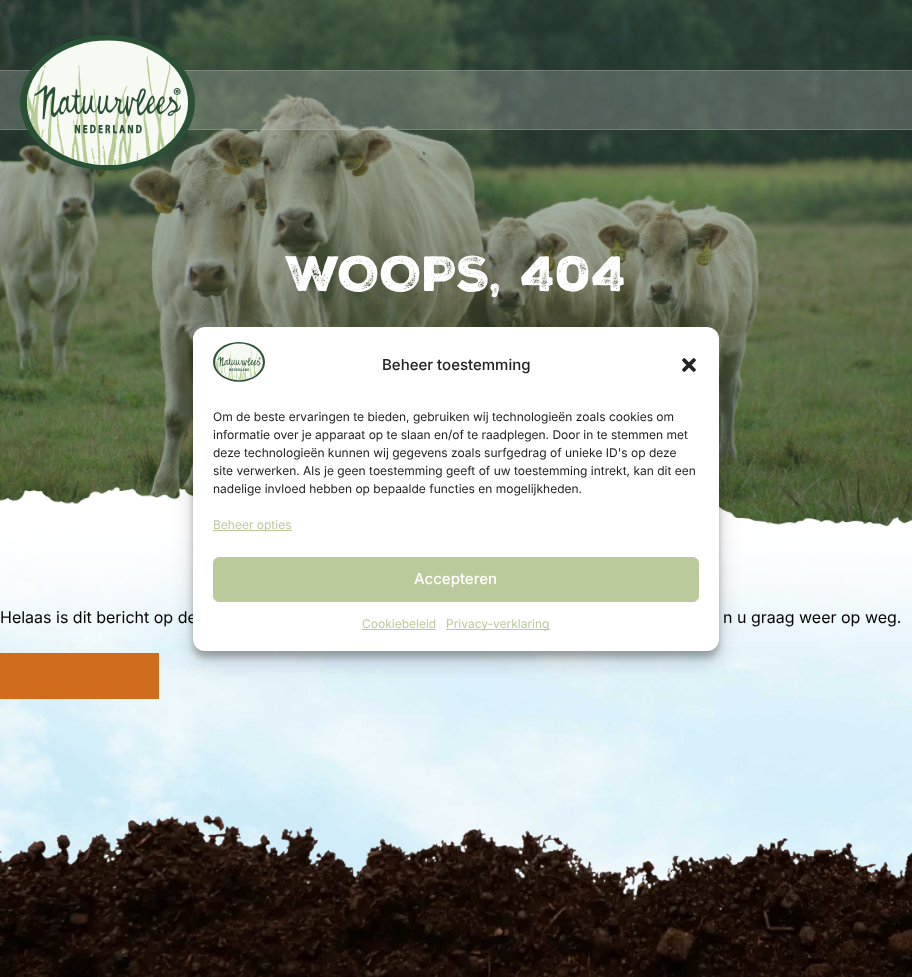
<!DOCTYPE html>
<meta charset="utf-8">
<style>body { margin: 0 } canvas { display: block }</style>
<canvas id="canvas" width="912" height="977"></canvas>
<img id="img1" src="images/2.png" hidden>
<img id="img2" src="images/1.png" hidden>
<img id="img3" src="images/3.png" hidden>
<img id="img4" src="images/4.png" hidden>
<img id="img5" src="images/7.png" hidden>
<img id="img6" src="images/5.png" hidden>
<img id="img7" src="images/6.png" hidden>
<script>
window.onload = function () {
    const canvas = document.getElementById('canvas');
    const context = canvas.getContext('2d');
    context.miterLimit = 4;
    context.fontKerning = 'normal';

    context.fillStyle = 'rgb(255, 255, 255)';
    context.fillRect(0, 0, 912, 977);
    context.drawImage(document.getElementById('img1'), 0, 0, 912, 527);
    context.fillStyle = 'rgba(199, 199, 199, 0.28)';
    context.fillRect(0, 70, 912, 60);
    context.fillRect(0, 70, 912, 1);
    context.fillRect(0, 129, 912, 1);
    context.drawImage(document.getElementById('img2'), 20, 35, 175, 136);
    context.drawImage(document.getElementById('img3'), 0, 486, 912, 44);
    context.drawImage(document.getElementById('img4'), 0, 530, 912, 369);
    context.fillStyle = 'rgb(208, 108, 28)';
    context.fillRect(0, 653, 159, 46);
    context.fillStyle = 'rgba(0, 0, 0, 0.23)';
    context.filter = 'blur(3px)';
    context.beginPath();
    context.roundRect(193, 333, 526, 324, 12);
    context.fill();
    context.filter = 'none';
    context.fillStyle = 'rgba(0, 0, 0, 0.19)';
    context.filter = 'blur(10px)';
    context.beginPath();
    context.roundRect(193, 337, 526, 324, 12);
    context.fill();
    context.filter = 'none';
    context.drawImage(document.getElementById('img5'), 0, 815, 912, 162);
    context.font = '900 48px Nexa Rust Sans';
    context.fillStyle = 'rgb(255, 255, 255)';
    context.fillText('WOOPS, 404', 285, 291);
    context.font = '16px Inter';
    context.fillStyle = 'rgb(0, 0, 0)';
    context.fillText('Helaas is dit bericht op de', 0, 623);
    context.fillText('n u graag weer op weg.', 723, 623);
    context.fillStyle = 'rgb(255, 255, 255)';
    context.beginPath();
    context.roundRect(193, 327, 526, 324, 12);
    context.fill();
    context.drawImage(document.getElementById('img6'), 213, 342, 52, 40);
    context.font = '500 15px Inter';
    context.fillStyle = 'rgb(34, 34, 34)';
    context.fillText('Beheer toestemming', 382, 370);
    context.drawImage(document.getElementById('img7'), 682, 358, 14, 14);
    context.font = '12px Inter';
    context.fillText('Om de beste ervaringen te bieden, gebruiken wij technologieën zoals cookies om', 213, 421);
    context.fillText('informatie over je apparaat op te slaan en/of te raadplegen. Door in te stemmen met', 213, 439);
    context.fillText('deze technologieën kunnen wij gegevens zoals surfgedrag of unieke ID\'s op deze', 213, 457);
    context.fillText('site verwerken. Als je geen toestemming geeft of uw toestemming intrekt, kan dit een', 213, 475);
    context.fillText('nadelige invloed hebben op bepaalde functies en mogelijkheden.', 213, 493);
    context.fillStyle = 'rgb(186, 202, 154)';
    context.fillRect(213, 530, 79, 1);
    context.fillText('Beheer opties', 213, 529);
    context.beginPath();
    context.roundRect(213.5, 557.5, 485, 44, 5.5);
    context.fill();
    context.strokeStyle = 'rgb(186, 202, 154)';
    context.stroke();
    context.font = '500 15px Inter';
    context.fillStyle = 'rgb(255, 255, 255)';
    context.fillText('Accepteren', 414, 584);
    context.font = '12px Inter';
    context.fillStyle = 'rgb(186, 202, 154)';
    context.fillText('Cookiebeleid', 362, 628);
    context.fillRect(362, 629, 74, 1);
    context.fillRect(446, 629, 104, 1);
    context.fillText('Privacy-verklaring', 446, 628);
};
</script>
